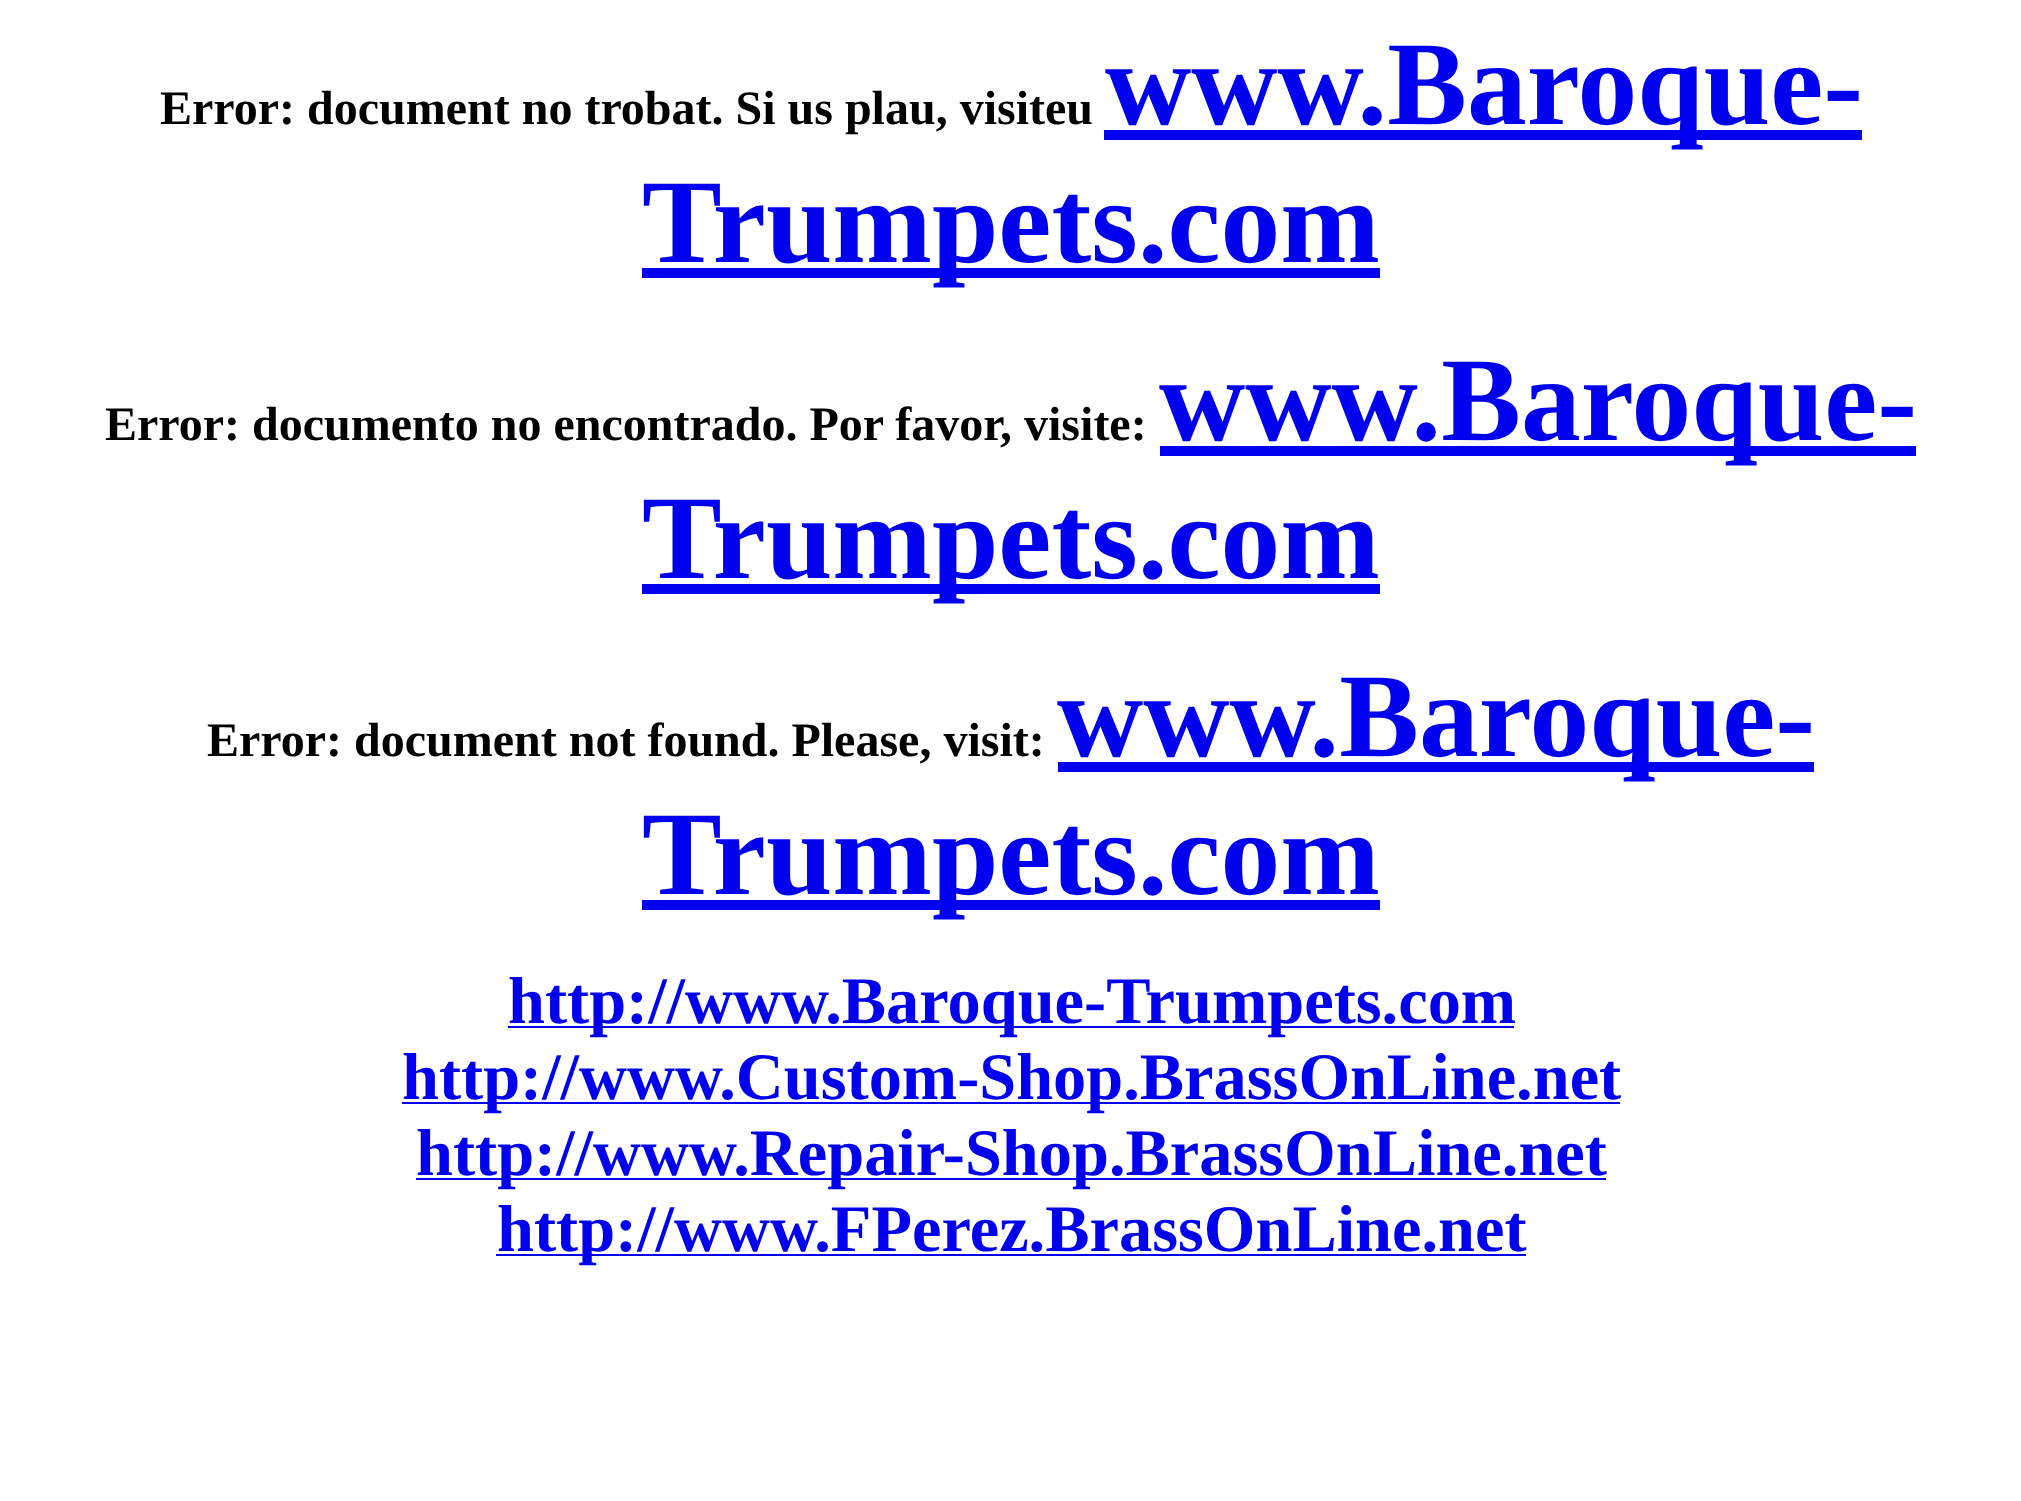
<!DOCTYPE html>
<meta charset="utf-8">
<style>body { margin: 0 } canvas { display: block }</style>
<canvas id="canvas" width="2021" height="1501"></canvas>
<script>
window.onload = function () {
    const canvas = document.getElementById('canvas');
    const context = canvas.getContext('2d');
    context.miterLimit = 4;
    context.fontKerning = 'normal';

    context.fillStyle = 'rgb(255, 255, 255)';
    context.fillRect(0, 0, 2021, 1501);
    context.fillStyle = 'rgb(0, 0, 238)';
    context.fillRect(1104, 130, 758, 10);
    context.fillRect(642, 268, 738, 10);
    context.fillRect(1160, 446, 756, 10);
    context.fillRect(642, 584, 738, 10);
    context.fillRect(1058, 762, 756, 10);
    context.fillRect(642, 900, 738, 10);
    context.fillRect(508, 1026, 1006, 2);
    context.fillRect(402, 1102, 1218, 2);
    context.fillRect(416, 1178, 1190, 2);
    context.fillRect(496, 1254, 1030, 2);
    context.font = 'bold 48px Liberation Serif';
    context.fillStyle = 'rgb(0, 0, 0)';
    context.fillText('Error: document no trobat. Si us plau, visiteu', 160, 124);
    context.font = 'bold 119.5px Liberation Serif';
    context.fillStyle = 'rgb(0, 0, 238)';
    context.fillText('www.Baroque-', 1105, 124);
    context.fillText('Trumpets.com', 642, 262);
    context.font = 'bold 48px Liberation Serif';
    context.fillStyle = 'rgb(0, 0, 0)';
    context.fillText('Error: documento no encontrado. Por favor, visite:', 105, 440);
    context.font = 'bold 119.5px Liberation Serif';
    context.fillStyle = 'rgb(0, 0, 238)';
    context.fillText('www.Baroque-', 1159, 440);
    context.fillText('Trumpets.com', 642, 578);
    context.font = 'bold 48px Liberation Serif';
    context.fillStyle = 'rgb(0, 0, 0)';
    context.fillText('Error: document not found. Please, visit:', 207, 756);
    context.font = 'bold 119.5px Liberation Serif';
    context.fillStyle = 'rgb(0, 0, 238)';
    context.fillText('www.Baroque-', 1057, 756);
    context.fillText('Trumpets.com', 642, 894);
    context.font = 'bold 66.4px Liberation Serif';
    context.fillText('http://www.Baroque-Trumpets.com', 508, 1023);
    context.fillText('http://www.Custom-Shop.BrassOnLine.net', 402, 1099);
    context.fillText('http://www.Repair-Shop.BrassOnLine.net', 416, 1175);
    context.fillText('http://www.FPerez.BrassOnLine.net', 497, 1251);
};
</script>
